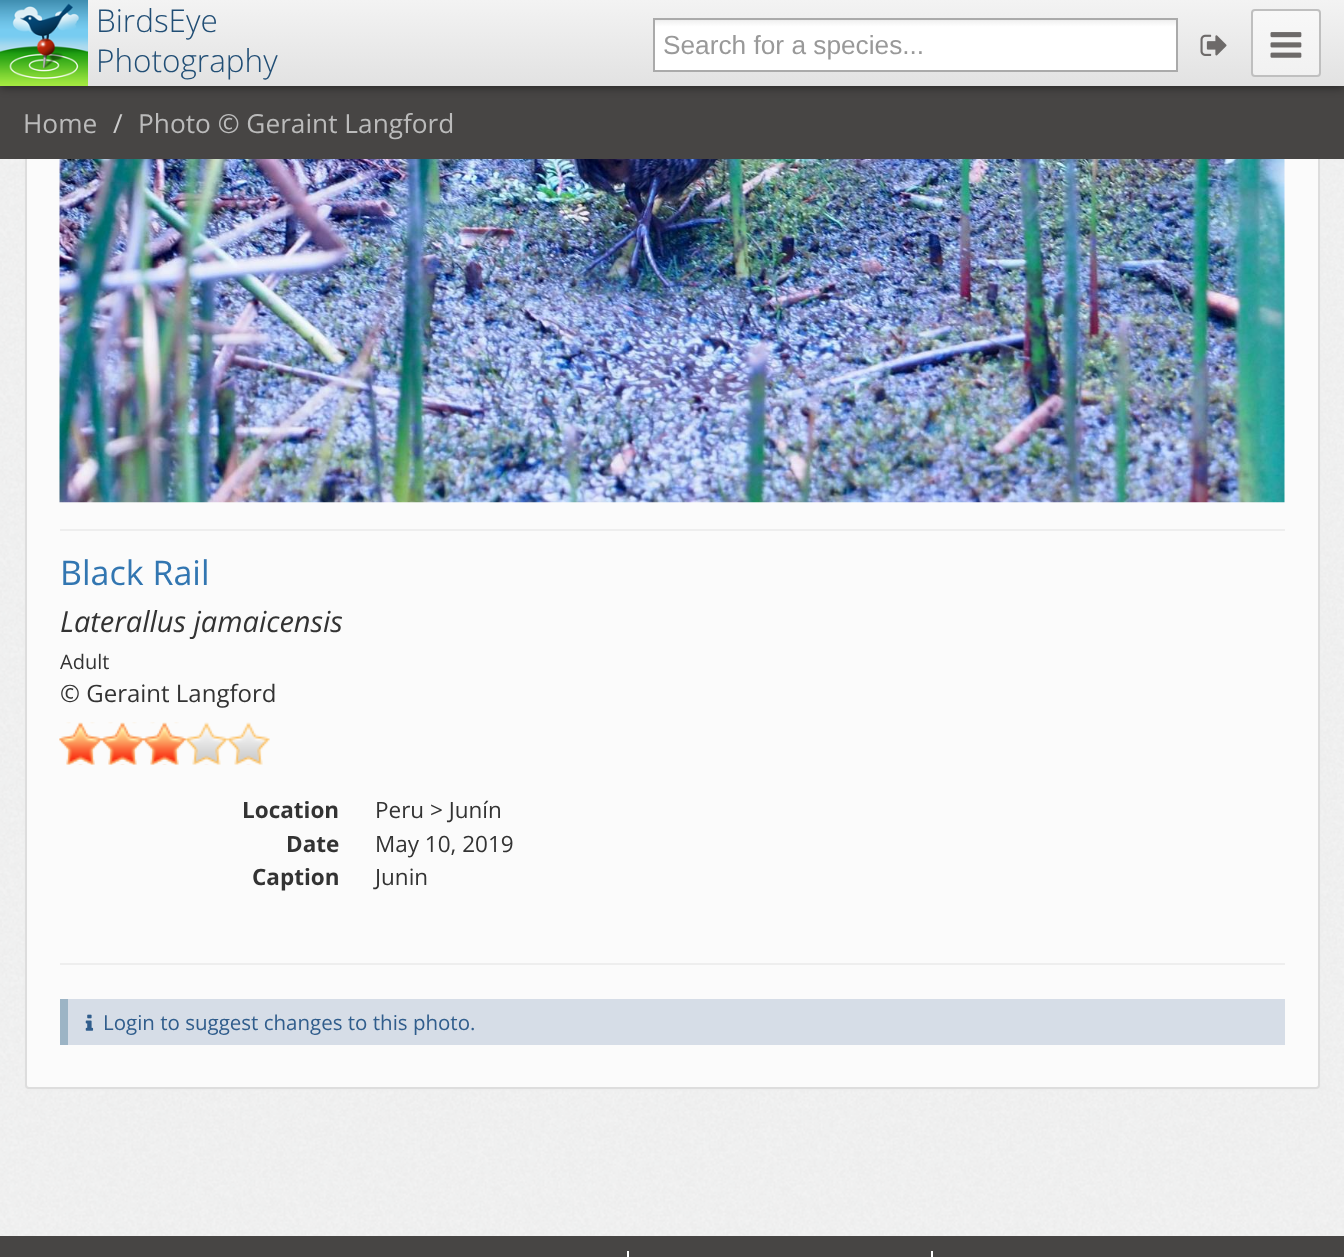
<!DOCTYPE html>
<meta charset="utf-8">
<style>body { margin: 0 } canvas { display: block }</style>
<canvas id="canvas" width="1344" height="1257"></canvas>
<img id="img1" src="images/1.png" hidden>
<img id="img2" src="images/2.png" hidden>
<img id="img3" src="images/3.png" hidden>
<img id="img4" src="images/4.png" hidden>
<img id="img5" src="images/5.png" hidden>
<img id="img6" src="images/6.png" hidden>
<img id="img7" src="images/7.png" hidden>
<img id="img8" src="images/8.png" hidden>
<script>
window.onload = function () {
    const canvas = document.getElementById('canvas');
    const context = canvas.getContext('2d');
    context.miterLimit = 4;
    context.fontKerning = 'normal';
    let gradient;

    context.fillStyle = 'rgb(255, 255, 255)';
    context.fillRect(0, 0, 1344, 1257);
    context.drawImage(document.getElementById('img1'), 0, 159, 1344, 1077);
    context.fillStyle = 'rgb(236, 236, 236)';
    context.filter = 'blur(1px)';
    context.beginPath();
    context.roundRect(25, -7, 1295, 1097, 4);
    context.fill();
    context.filter = 'none';
    context.fillStyle = 'rgb(251, 251, 251)';
    context.beginPath();
    context.roundRect(26, -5, 1293, 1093, 3);
    context.fill();
    context.strokeStyle = 'rgb(221, 221, 221)';
    context.lineWidth = 2;
    context.stroke();
    context.fillStyle = 'rgb(71, 69, 68)';
    context.fillRect(0, 86, 1344, 73);
    context.fillStyle = 'rgba(0, 0, 0, 0.4)';
    context.filter = 'blur(4.5px)';
    context.beginPath();
    context.rect(0, 2, 1344, 86);
    context.fill();
    context.filter = 'none';
    gradient = context.createLinearGradient(672, 0, 672, 86);
    gradient.addColorStop(0, 'rgb(243, 243, 243)');
    gradient.addColorStop(1, 'rgb(226, 226, 226)');
    context.fillStyle = gradient;
    context.fillRect(88, 0, 1256, 86);
    context.drawImage(document.getElementById('img2'), 0, 0, 88, 86);
    gradient = context.createLinearGradient(915, 19, 915, 70);
    gradient.addColorStop(0.01, 'rgb(238, 238, 238)');
    gradient.addColorStop(0.15, 'rgb(255, 255, 255)');
    context.fillStyle = gradient;
    context.fillRect(655, 21, 521, 49);
    context.strokeStyle = 'rgb(170, 170, 170)';
    context.strokeRect(654, 19, 523, 52);
    context.drawImage(document.getElementById('img3'), 1200, 34, 27, 22);
    context.save();
    context.beginPath();
    context.roundRect(1251, 9, 70, 68, 4);
    context.clip();
    gradient = context.createLinearGradient(1286, 10, 1286, 75);
    gradient.addColorStop(0, 'rgb(248, 248, 248)');
    gradient.addColorStop(1, 'rgb(241, 241, 241)');
    context.fillStyle = gradient;
    context.fillRect(1251, 11, 70, 64);
    context.restore();
    context.beginPath();
    context.roundRect(1252, 10, 68, 66, 3);
    context.strokeStyle = 'rgb(191, 191, 191)';
    context.stroke();
    context.drawImage(document.getElementById('img4'), 1270, 32, 32, 26);
    context.drawImage(document.getElementById('img5'), 59, 159, 1226, 344);
    context.fillStyle = 'rgb(238, 238, 238)';
    context.fillRect(60, 529, 1225, 2);
    context.drawImage(document.getElementById('img6'), 59, 722, 211, 43);
    context.drawImage(document.getElementById('img7'), 59, 722, 127, 43);
    context.fillRect(60, 963, 1225, 2);
    context.fillStyle = 'rgb(214, 221, 231)';
    context.fillRect(68, 999, 1217, 46);
    context.fillStyle = 'rgb(156, 180, 197)';
    context.fillRect(60, 999, 8, 46);
    context.drawImage(document.getElementById('img8'), 85, 1014, 9, 17);
    context.fillStyle = 'rgb(71, 69, 68)';
    context.fillRect(0, 1236, 1344, 21);
    context.fillStyle = 'rgb(255, 255, 255)';
    context.fillRect(627, 1251, 2, 6);
    context.fillRect(931, 1251, 2, 6);
    context.font = '300 31.5px Open Sans';
    context.fillStyle = 'rgb(33, 78, 117)';
    context.fillText('BirdsEye', 96, 32);
    context.fillText('Photography', 96, 72);
    context.font = '26.25px Liberation Sans';
    context.fillStyle = 'rgb(153, 153, 153)';
    context.fillText('Search for a species...', 663, 54);
    context.font = '26.25px Open Sans';
    context.fillStyle = 'rgb(187, 187, 187)';
    context.fillText('Home', 23, 133);
    context.fillStyle = 'rgb(204, 204, 204)';
    context.fillText('/', 113, 133);
    context.fillStyle = 'rgb(187, 187, 187)';
    context.fillText('Photo © Geraint Langford', 138, 133);
    context.font = '34px Open Sans';
    context.fillStyle = 'rgb(50, 118, 177)';
    context.fillText('Black Rail', 60, 585);
    context.font = 'italic 29px Open Sans';
    context.fillStyle = 'rgb(51, 51, 51)';
    context.fillText('Laterallus jamaicensis', 60, 632);
    context.font = '20px Open Sans';
    context.fillText('Adult', 60, 669);
    context.font = '24px Open Sans';
    context.fillText('© Geraint Langford', 60, 702);
    context.font = 'bold 22.5px Open Sans';
    context.fillText('Location', 242, 818);
    context.font = '22.5px Open Sans';
    context.fillText('Peru > Junín', 375, 818);
    context.font = 'bold 22.5px Open Sans';
    context.fillText('Date', 286, 852);
    context.font = '22.5px Open Sans';
    context.fillText('May 10, 2019', 375, 852);
    context.font = 'bold 22.5px Open Sans';
    context.fillText('Caption', 252, 885);
    context.font = '22.5px Open Sans';
    context.fillText('Junin', 375, 885);
    context.font = '20.5px Open Sans';
    context.fillStyle = 'rgb(48, 93, 140)';
    context.fillText('Login to suggest changes to this photo.', 103, 1030);
};
</script>
